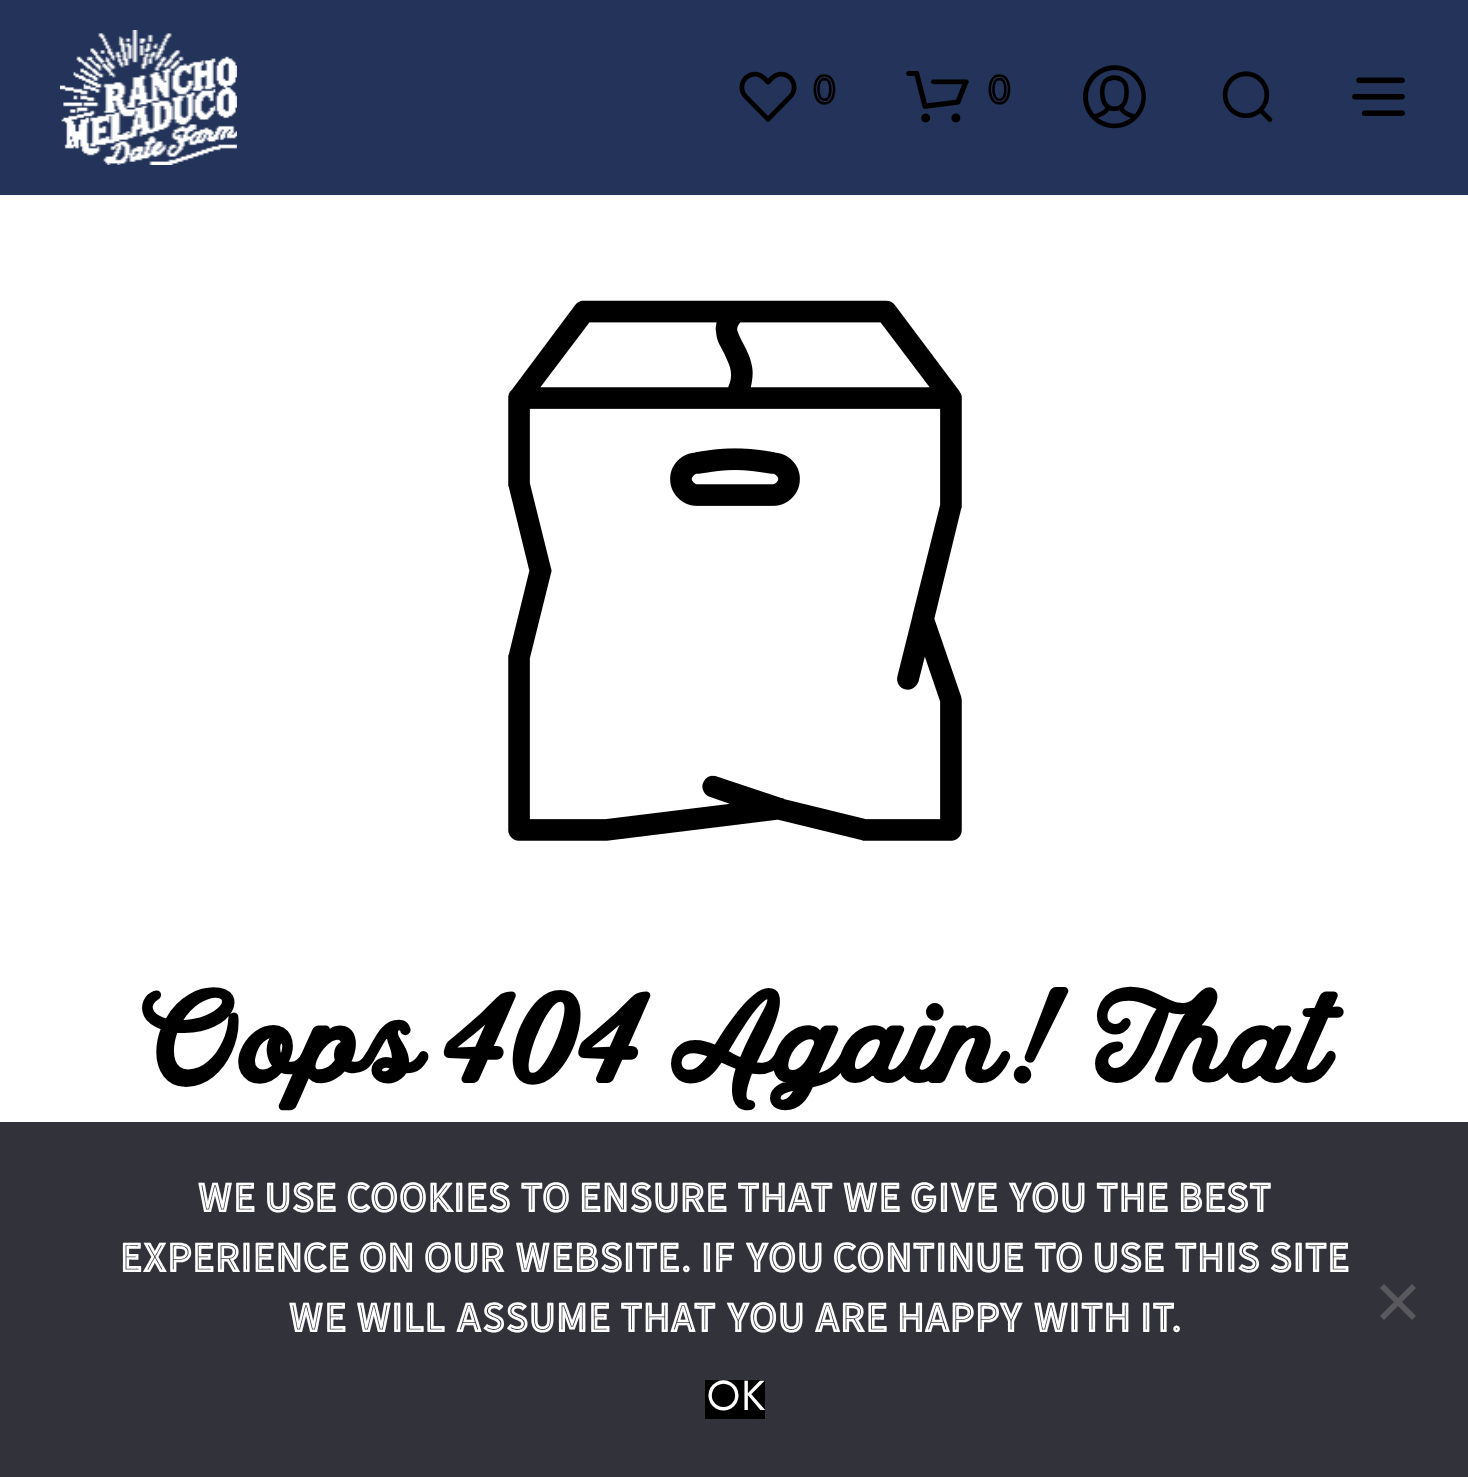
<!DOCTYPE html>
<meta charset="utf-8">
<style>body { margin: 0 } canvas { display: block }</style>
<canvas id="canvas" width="1468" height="1477"></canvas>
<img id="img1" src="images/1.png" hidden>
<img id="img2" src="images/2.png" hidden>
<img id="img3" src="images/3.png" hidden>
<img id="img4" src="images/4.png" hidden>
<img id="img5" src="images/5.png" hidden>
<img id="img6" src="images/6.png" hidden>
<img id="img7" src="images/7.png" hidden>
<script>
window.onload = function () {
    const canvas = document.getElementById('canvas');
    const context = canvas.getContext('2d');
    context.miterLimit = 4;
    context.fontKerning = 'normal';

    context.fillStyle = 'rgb(255, 255, 255)';
    context.fillRect(0, 0, 1468, 1477);
    context.fillStyle = 'rgb(35, 51, 89)';
    context.fillRect(0, 0, 1468, 195);
    context.drawImage(document.getElementById('img1'), 60, 30, 177, 135);
    context.drawImage(document.getElementById('img2'), 739, 71, 58, 51);
    context.drawImage(document.getElementById('img3'), 906, 71, 63, 52);
    context.drawImage(document.getElementById('img4'), 1083, 65, 63, 64);
    context.drawImage(document.getElementById('img5'), 1222, 71, 51, 51);
    context.drawImage(document.getElementById('img6'), 1352, 77, 53, 39);
    context.drawImage(document.getElementById('img7'), 508, 300, 454, 541);
    context.fillStyle = 'rgb(50, 50, 58)';
    context.fillRect(0, 1122, 1468, 355);
    context.fillStyle = 'rgb(89, 89, 93)';
    context.beginPath();
    context.moveTo(1412, 1284);
    context.lineTo(1416, 1288);
    context.lineTo(1384, 1320);
    context.lineTo(1380, 1316);
    context.closePath();
    context.fill();
    context.beginPath();
    context.moveTo(1380, 1288);
    context.lineTo(1384, 1284);
    context.lineTo(1416, 1316);
    context.lineTo(1412, 1320);
    context.closePath();
    context.fill();
    context.fillStyle = 'rgb(0, 0, 0)';
    context.fillRect(705, 1380, 60, 39);
    context.font = '39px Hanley';
    context.fillText('0', 812, 104);
    context.fillText('0', 987, 104);
    context.font = 'bold 120px Hanley';
    context.fillText('Oops 404 Again! That', 142, 1083);
    context.font = '39px Hanley';
    context.fillStyle = 'rgb(255, 255, 255)';
    context.fillText('We use cookies to ensure that we give you the best', 197, 1212);
    context.fillText('experience on our website. If you continue to use this site', 120, 1272);
    context.fillText('we will assume that you are happy with it.', 288, 1332);
    context.font = '39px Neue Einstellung';
    context.fillText('OK', 706, 1410);
};
</script>
